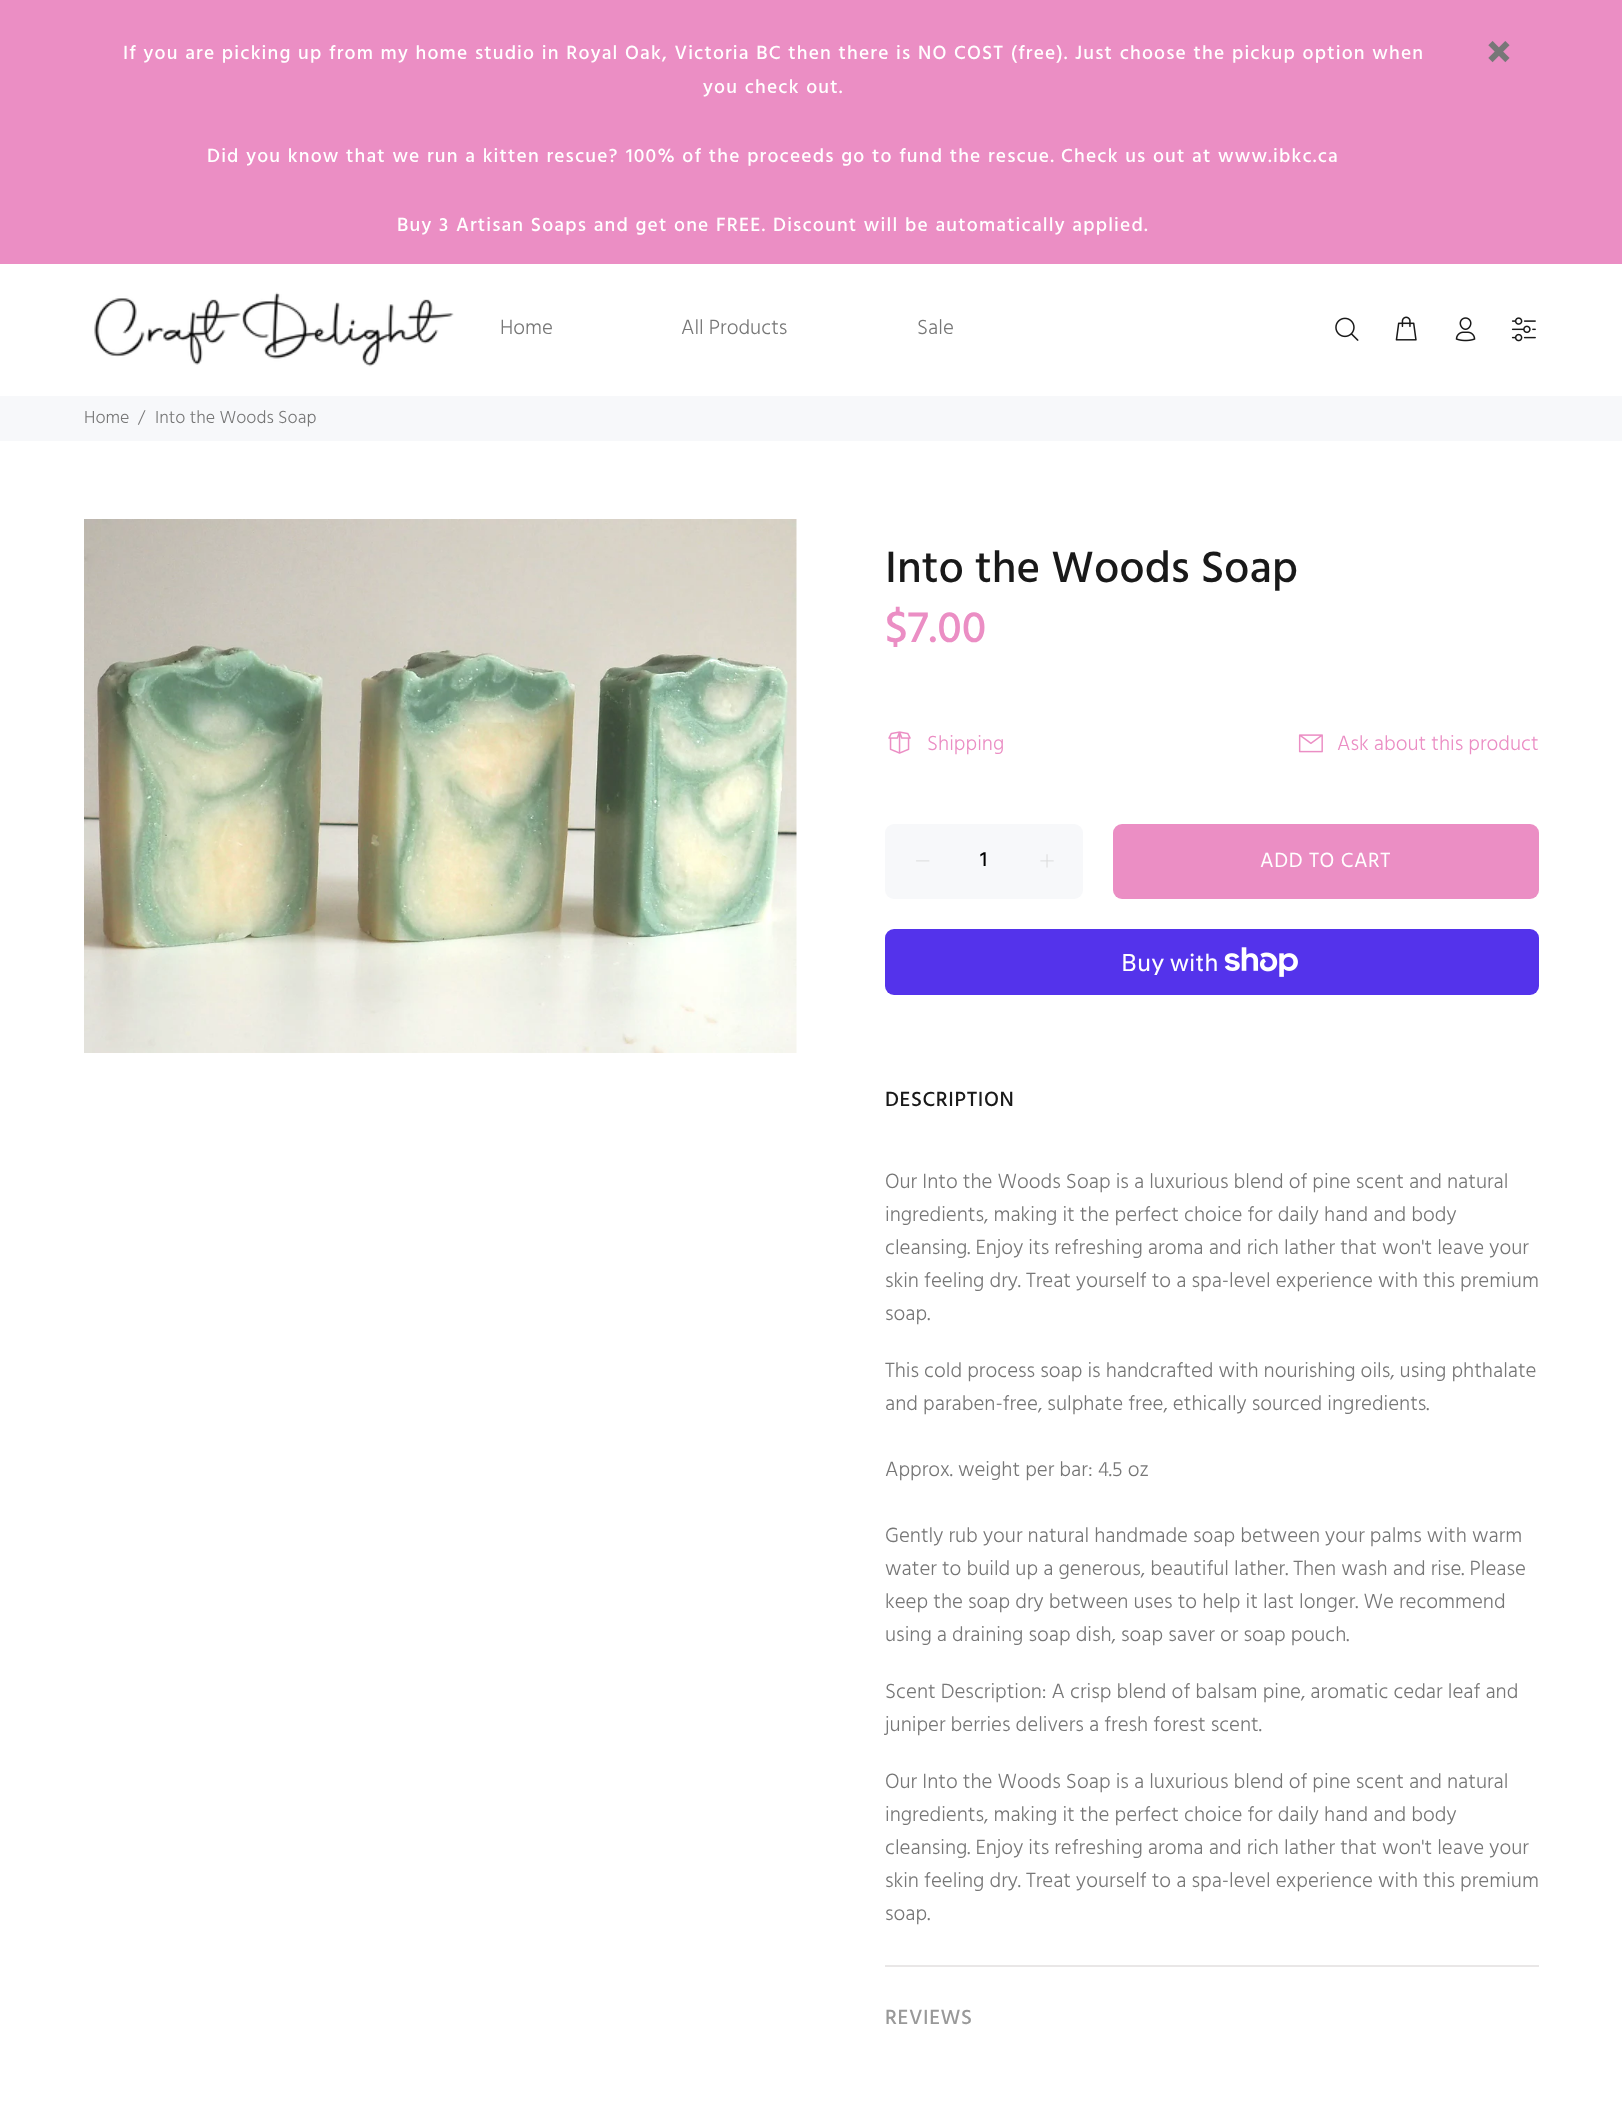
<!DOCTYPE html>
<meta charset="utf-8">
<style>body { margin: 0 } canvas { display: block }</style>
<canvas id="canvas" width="1622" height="2113"></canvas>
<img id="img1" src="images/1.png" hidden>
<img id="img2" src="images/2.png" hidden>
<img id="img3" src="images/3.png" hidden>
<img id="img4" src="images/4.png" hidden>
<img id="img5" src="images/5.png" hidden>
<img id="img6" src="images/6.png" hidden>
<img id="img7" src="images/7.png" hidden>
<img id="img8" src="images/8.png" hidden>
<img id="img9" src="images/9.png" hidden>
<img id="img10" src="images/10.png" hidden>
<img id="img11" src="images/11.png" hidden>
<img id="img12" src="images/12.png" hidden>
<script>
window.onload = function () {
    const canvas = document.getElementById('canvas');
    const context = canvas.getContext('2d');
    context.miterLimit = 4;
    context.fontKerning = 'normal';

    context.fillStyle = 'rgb(255, 255, 255)';
    context.fillRect(0, 0, 1622, 2113);
    context.fillStyle = 'rgb(235, 142, 196)';
    context.fillRect(0, 0, 1622, 264);
    context.drawImage(document.getElementById('img1'), 1488, 41, 22, 22);
    context.drawImage(document.getElementById('img2'), 94, 292, 360, 75);
    context.drawImage(document.getElementById('img3'), 1335, 317, 24, 24);
    context.drawImage(document.getElementById('img4'), 1395, 316, 22, 25);
    context.drawImage(document.getElementById('img5'), 1455, 317, 21, 25);
    context.drawImage(document.getElementById('img6'), 1511, 317, 25, 25);
    context.fillStyle = 'rgb(247, 248, 250)';
    context.fillRect(0, 396, 1622, 45);
    context.drawImage(document.getElementById('img7'), 84, 519, 713, 534);
    context.drawImage(document.getElementById('img8'), 888, 731, 23, 23);
    context.drawImage(document.getElementById('img9'), 1298, 734, 25, 19);
    context.beginPath();
    context.roundRect(885, 824, 198, 75, 9);
    context.fill();
    context.drawImage(document.getElementById('img10'), 916, 860, 14, 2);
    context.drawImage(document.getElementById('img11'), 1040, 854, 14, 14);
    context.fillStyle = 'rgb(235, 142, 196)';
    context.beginPath();
    context.roundRect(1113, 824, 426, 75, 9);
    context.fill();
    context.fillStyle = 'rgb(84, 51, 235)';
    context.beginPath();
    context.roundRect(885, 929, 654, 66, 9);
    context.fill();
    context.drawImage(document.getElementById('img12'), 1224, 947, 74, 30);
    context.fillStyle = 'rgb(233, 231, 231)';
    context.fillRect(885, 1965, 654, 2);
    context.letterSpacing = '1.17px';
    context.wordSpacing = '0.6px';
    context.font = '500 19.5px Hind';
    context.fillStyle = 'rgb(255, 255, 255)';
    context.fillText('If you are picking up from my home studio in Royal Oak, Victoria BC then there is NO COST (free).', 123, 59);
    context.fillText('Just choose the pickup option when', 1075, 59);
    context.fillText('you check out.', 703, 93);
    context.fillText('Did you know that we run a kitten rescue?', 207, 162);
    context.fillText('100% of the proceeds go to fund the rescue.', 626, 162);
    context.fillText('Check us out at www.ibkc.ca', 1061, 162);
    context.fillText('Buy 3 Artisan Soaps and get one FREE.', 397, 231);
    context.fillText('Discount will be automatically applied.', 773, 231);
    context.letterSpacing = '0px';
    context.wordSpacing = '0px';
    context.font = '300 21px Hind';
    context.fillStyle = 'rgb(119, 119, 119)';
    context.fillText('Home', 500, 334);
    context.fillText('All Products', 681, 334);
    context.fillText('Sale', 917, 334);
    context.font = '300 18px Hind';
    context.fillText('Home', 84, 423);
    context.fillText('/', 138, 423);
    context.fillText('Into the Woods Soap', 155, 423);
    context.font = '500 45px Hind';
    context.fillStyle = 'rgb(25, 25, 25)';
    context.fillText('Into the Woods Soap', 885, 582);
    context.fillStyle = 'rgb(235, 142, 196)';
    context.fillText('$7.00', 885, 642);
    context.font = '300 21px Hind';
    context.fillText('Shipping', 927, 750);
    context.fillText('Ask about this product', 1337, 750);
    context.font = '500 21px Hind';
    context.fillStyle = 'rgb(0, 0, 0)';
    context.fillText('1', 980, 866);
    context.letterSpacing = '0.6px';
    context.font = '21px Hind';
    context.fillStyle = 'rgb(255, 255, 255)';
    context.fillText('ADD TO CART', 1260, 867);
    context.letterSpacing = '0px';
    context.font = '24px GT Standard';
    context.fillText('Buy with', 1121, 971);
    context.letterSpacing = '0.6px';
    context.font = '500 21px Hind';
    context.fillStyle = 'rgb(25, 25, 25)';
    context.fillText('DESCRIPTION', 885, 1106);
    context.letterSpacing = '0px';
    context.font = '300 21px Hind';
    context.fillStyle = 'rgb(119, 119, 119)';
    context.fillText('Our Into the Woods Soap is a luxurious blend of pine scent and natural', 885, 1188);
    context.fillText('ingredients, making it the perfect choice for daily hand and body', 885, 1221);
    context.fillText('cleansing. Enjoy its refreshing aroma and rich lather that won\'t leave your', 885, 1254);
    context.fillText('skin feeling dry. Treat yourself to a spa-level experience with this premium', 885, 1287);
    context.fillText('soap.', 885, 1320);
    context.fillText('This cold process soap is handcrafted with nourishing oils, using phthalate', 885, 1377);
    context.fillText('and paraben-free, sulphate free, ethically sourced ingredients.', 885, 1410);
    context.fillText('Approx. weight per bar: 4.5 oz', 885, 1476);
    context.fillText('Gently rub your natural handmade soap between your palms with warm', 885, 1542);
    context.fillText('water to build up a generous, beautiful lather. Then wash and rise. Please', 885, 1575);
    context.fillText('keep the soap dry between uses to help it last longer. We recommend', 885, 1608);
    context.fillText('using a draining soap dish, soap saver or soap pouch.', 885, 1641);
    context.fillText('Scent Description: A crisp blend of balsam pine, aromatic cedar leaf and', 885, 1698);
    context.fillText('juniper berries delivers a fresh forest scent.', 885, 1731);
    context.fillText('Our Into the Woods Soap is a luxurious blend of pine scent and natural', 885, 1788);
    context.fillText('ingredients, making it the perfect choice for daily hand and body', 885, 1821);
    context.fillText('cleansing. Enjoy its refreshing aroma and rich lather that won\'t leave your', 885, 1854);
    context.fillText('skin feeling dry. Treat yourself to a spa-level experience with this premium', 885, 1887);
    context.fillText('soap.', 885, 1920);
    context.letterSpacing = '0.6px';
    context.font = '500 21px Hind';
    context.fillStyle = 'rgb(153, 153, 153)';
    context.fillText('REVIEWS', 885, 2024);
};
</script>
